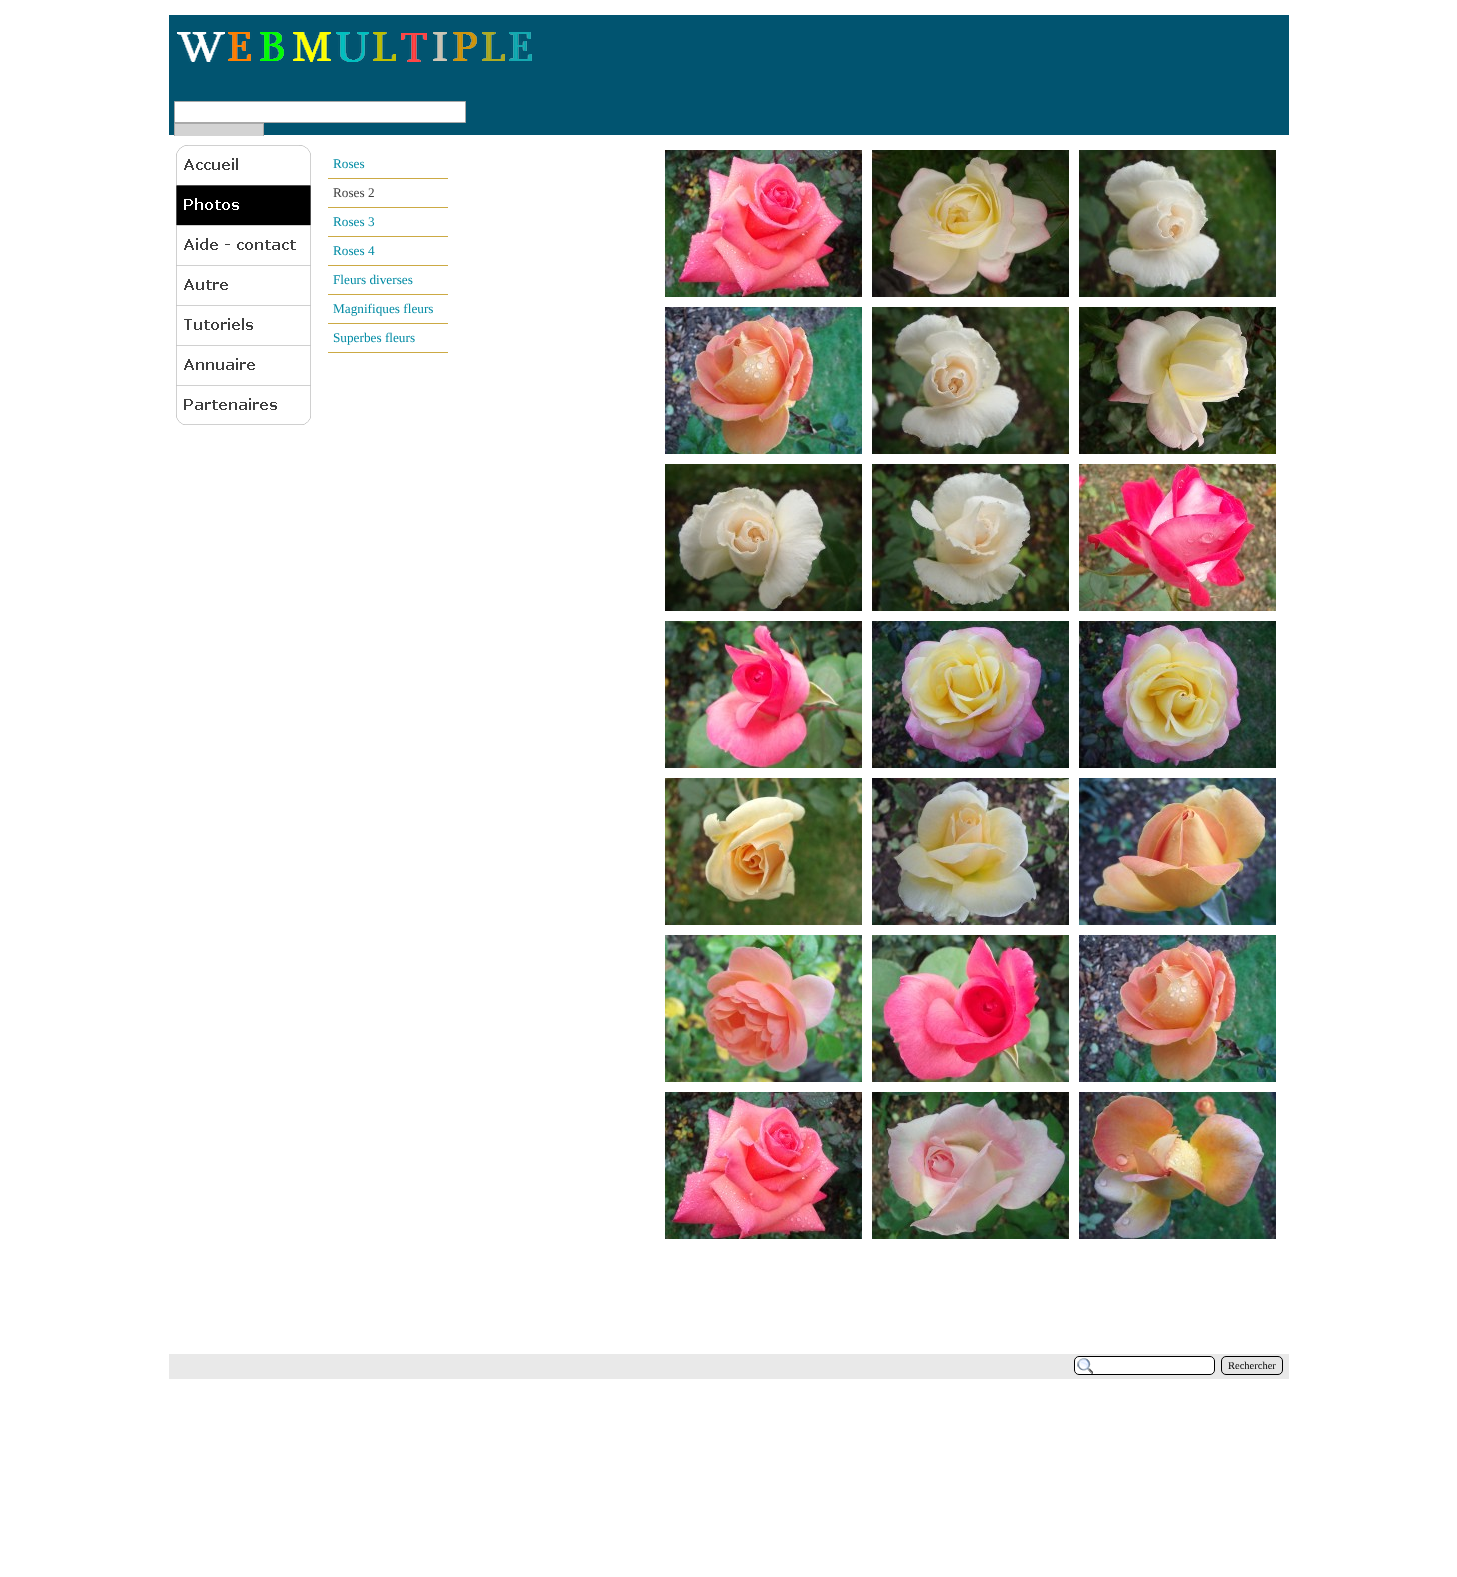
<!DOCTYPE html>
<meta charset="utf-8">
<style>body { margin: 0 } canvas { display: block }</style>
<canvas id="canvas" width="1457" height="1577"></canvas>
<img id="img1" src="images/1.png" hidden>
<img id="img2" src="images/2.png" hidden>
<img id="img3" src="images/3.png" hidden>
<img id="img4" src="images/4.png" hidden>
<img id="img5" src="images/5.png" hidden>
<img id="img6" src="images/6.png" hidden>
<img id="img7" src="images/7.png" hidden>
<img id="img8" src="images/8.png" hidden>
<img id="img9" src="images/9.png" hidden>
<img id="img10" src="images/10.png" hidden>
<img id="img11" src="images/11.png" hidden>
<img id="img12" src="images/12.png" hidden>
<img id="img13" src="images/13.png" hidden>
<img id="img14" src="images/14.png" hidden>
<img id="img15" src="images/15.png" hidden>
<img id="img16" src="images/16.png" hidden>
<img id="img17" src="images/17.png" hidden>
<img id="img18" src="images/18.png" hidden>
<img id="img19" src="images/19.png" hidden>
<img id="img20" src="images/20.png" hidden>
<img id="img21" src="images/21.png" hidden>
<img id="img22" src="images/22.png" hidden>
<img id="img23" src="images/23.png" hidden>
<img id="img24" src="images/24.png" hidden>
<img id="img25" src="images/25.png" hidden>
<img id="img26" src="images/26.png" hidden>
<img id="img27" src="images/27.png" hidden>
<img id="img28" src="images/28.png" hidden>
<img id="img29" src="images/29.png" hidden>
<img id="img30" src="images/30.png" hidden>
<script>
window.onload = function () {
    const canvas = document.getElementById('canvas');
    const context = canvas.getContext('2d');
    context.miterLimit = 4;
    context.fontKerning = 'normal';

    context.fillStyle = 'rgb(255, 255, 255)';
    context.fillRect(0, 0, 1457, 1577);
    context.fillStyle = 'rgb(1, 84, 112)';
    context.fillRect(169, 15, 1120, 120);
    context.drawImage(document.getElementById('img1'), 177, 32, 355, 30);
    context.fillStyle = 'rgb(255, 255, 255)';
    context.beginPath();
    context.rect(174.5, 101.5, 291, 21);
    context.fill();
    context.strokeStyle = 'rgb(169, 169, 169)';
    context.stroke();
    context.fillStyle = 'rgb(211, 211, 211)';
    context.fillRect(175, 124, 88, 12);
    context.save();
    context.beginPath();
    context.rect(174, 101, 359, 35);
    context.clip();
    context.strokeRect(174.5, 123.5, 89, 25);
    context.restore();
    context.drawImage(document.getElementById('img2'), 176, 145, 135, 40);
    context.drawImage(document.getElementById('img3'), 176, 185, 135, 40);
    context.drawImage(document.getElementById('img4'), 176, 225, 135, 40);
    context.drawImage(document.getElementById('img5'), 176, 265, 135, 40);
    context.drawImage(document.getElementById('img6'), 176, 305, 135, 40);
    context.drawImage(document.getElementById('img7'), 176, 345, 135, 40);
    context.drawImage(document.getElementById('img8'), 176, 385, 135, 40);
    context.fillStyle = 'rgb(204, 170, 68)';
    context.fillRect(328, 178, 120, 1);
    context.fillRect(328, 207, 120, 1);
    context.fillRect(328, 236, 120, 1);
    context.fillRect(328, 265, 120, 1);
    context.fillRect(328, 294, 120, 1);
    context.fillRect(328, 323, 120, 1);
    context.fillRect(328, 352, 120, 1);
    context.drawImage(document.getElementById('img9'), 665, 150, 197, 147);
    context.drawImage(document.getElementById('img10'), 665, 307, 197, 147);
    context.drawImage(document.getElementById('img11'), 665, 464, 197, 147);
    context.drawImage(document.getElementById('img12'), 665, 621, 197, 147);
    context.drawImage(document.getElementById('img13'), 665, 778, 197, 147);
    context.drawImage(document.getElementById('img14'), 665, 935, 197, 147);
    context.drawImage(document.getElementById('img15'), 665, 1092, 197, 147);
    context.drawImage(document.getElementById('img16'), 872, 150, 197, 147);
    context.drawImage(document.getElementById('img17'), 872, 307, 197, 147);
    context.drawImage(document.getElementById('img18'), 872, 464, 197, 147);
    context.drawImage(document.getElementById('img19'), 872, 621, 197, 147);
    context.drawImage(document.getElementById('img20'), 872, 778, 197, 147);
    context.drawImage(document.getElementById('img21'), 872, 935, 197, 147);
    context.drawImage(document.getElementById('img22'), 872, 1092, 197, 147);
    context.drawImage(document.getElementById('img23'), 1079, 150, 197, 147);
    context.drawImage(document.getElementById('img24'), 1079, 307, 197, 147);
    context.drawImage(document.getElementById('img25'), 1079, 464, 197, 147);
    context.drawImage(document.getElementById('img26'), 1079, 621, 197, 147);
    context.drawImage(document.getElementById('img27'), 1079, 778, 197, 147);
    context.drawImage(document.getElementById('img28'), 1079, 935, 197, 147);
    context.drawImage(document.getElementById('img29'), 1079, 1092, 197, 147);
    context.fillStyle = 'rgb(233, 233, 233)';
    context.fillRect(169, 1354, 1120, 25);
    context.fillStyle = 'rgb(255, 255, 255)';
    context.beginPath();
    context.roundRect(1074, 1356, 141, 19, 5);
    context.fill();
    context.drawImage(document.getElementById('img30'), 1077, 1358, 16, 16);
    context.beginPath();
    context.roundRect(1074.5, 1356.5, 140, 18, 4.5);
    context.strokeStyle = 'rgb(0, 0, 0)';
    context.stroke();
    context.fillStyle = 'rgb(229, 229, 229)';
    context.beginPath();
    context.roundRect(1221.5, 1356.5, 61, 18, 4.5);
    context.fill();
    context.stroke();
    context.font = '13.25px Liberation Serif';
    context.fillStyle = 'rgb(2, 139, 164)';
    context.fillText('Roses', 333, 168);
    context.fillStyle = 'rgb(64, 64, 64)';
    context.fillText('Roses 2', 333, 197);
    context.fillStyle = 'rgb(2, 139, 164)';
    context.fillText('Roses 3', 333, 226);
    context.fillText('Roses 4', 333, 255);
    context.fillText('Fleurs diverses', 333, 284);
    context.fillText('Magnifiques fleurs', 333, 313);
    context.fillText('Superbes fleurs', 333, 342);
    context.font = '10.5px Liberation Serif';
    context.fillStyle = 'rgb(0, 0, 0)';
    context.fillText('Rechercher', 1228, 1369);
};
</script>
